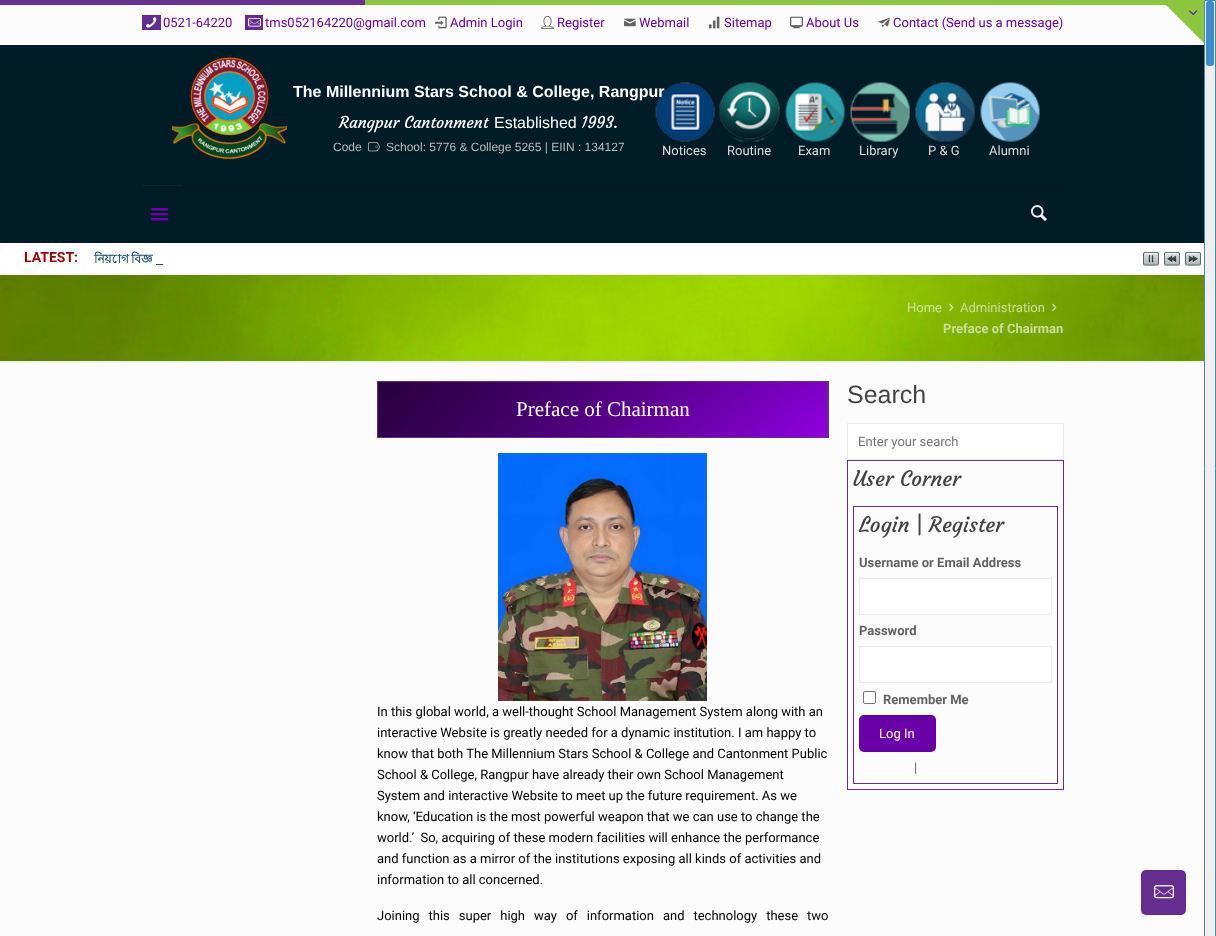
<!DOCTYPE html>
<meta charset="utf-8">
<style>body { margin: 0 } canvas { display: block }</style>
<canvas id="canvas" width="1216" height="936"></canvas>
<img id="img1" src="images/1.png" hidden>
<img id="img2" src="images/2.png" hidden>
<img id="img3" src="images/3.png" hidden>
<img id="img4" src="images/4.png" hidden>
<img id="img5" src="images/5.png" hidden>
<img id="img6" src="images/6.png" hidden>
<img id="img7" src="images/7.png" hidden>
<img id="img8" src="images/8.png" hidden>
<img id="img9" src="images/9.png" hidden>
<img id="img10" src="images/10.png" hidden>
<img id="img11" src="images/11.png" hidden>
<img id="img12" src="images/12.png" hidden>
<img id="img13" src="images/13.png" hidden>
<img id="img14" src="images/14.png" hidden>
<img id="img15" src="images/15.png" hidden>
<img id="img16" src="images/16.png" hidden>
<img id="img17" src="images/17.png" hidden>
<img id="img18" src="images/18.png" hidden>
<img id="img19" src="images/19.png" hidden>
<img id="img20" src="images/20.png" hidden>
<img id="img21" src="images/21.png" hidden>
<img id="img22" src="images/22.png" hidden>
<img id="img23" src="images/23.png" hidden>
<img id="img24" src="images/24.png" hidden>
<img id="img25" src="images/25.png" hidden>
<img id="img26" src="images/26.png" hidden>
<img id="img27" src="images/27.png" hidden>
<img id="img28" src="images/28.png" hidden>
<img id="img29" src="images/29.png" hidden>
<img id="img30" src="images/30.png" hidden>
<script>
window.onload = function () {
    const canvas = document.getElementById('canvas');
    const context = canvas.getContext('2d');
    context.miterLimit = 4;
    context.fontKerning = 'normal';

    context.fillStyle = 'rgb(252, 252, 252)';
    context.fillRect(0, 0, 1216, 936);
    context.fillStyle = 'rgb(140, 198, 62)';
    context.beginPath();
    context.moveTo(1206, 0);
    context.lineTo(1206, 45);
    context.lineTo(1161, 0);
    context.closePath();
    context.fill();
    context.fillRect(365, 0, 801, 5);
    context.fillStyle = 'rgb(104, 48, 144)';
    context.fillRect(0, 0, 365, 5);
    context.fillStyle = 'rgb(102, 45, 145)';
    context.fillRect(142, 15, 19, 15);
    context.drawImage(document.getElementById('img1'), 146, 17, 11, 11);
    context.fillRect(245, 15, 18, 15);
    context.drawImage(document.getElementById('img2'), 248, 18, 13, 9);
    context.drawImage(document.getElementById('img3'), 435, 16, 12, 13);
    context.drawImage(document.getElementById('img4'), 541, 16, 13, 13);
    context.drawImage(document.getElementById('img5'), 624, 18, 12, 9);
    context.drawImage(document.getElementById('img6'), 709, 16, 11, 13);
    context.drawImage(document.getElementById('img7'), 790, 16, 13, 13);
    context.drawImage(document.getElementById('img8'), 878, 17, 12, 11);
    context.fillStyle = 'rgb(0, 28, 39)';
    context.fillRect(0, 45, 1204, 198);
    context.drawImage(document.getElementById('img9'), 368, 142, 12, 10);
    context.fillStyle = 'rgb(0, 26, 36)';
    context.fillRect(182, 185, 882, 1);
    context.drawImage(document.getElementById('img10'), 172, 55, 115, 105);
    context.drawImage(document.getElementById('img11'), 655, 82, 60, 60);
    context.drawImage(document.getElementById('img12'), 719, 82, 61, 60);
    context.drawImage(document.getElementById('img13'), 785, 82, 60, 60);
    context.drawImage(document.getElementById('img14'), 850, 82, 60, 60);
    context.drawImage(document.getElementById('img15'), 915, 82, 60, 60);
    context.drawImage(document.getElementById('img16'), 980, 82, 60, 60);
    context.fillStyle = 'rgb(13, 39, 50)';
    context.fillRect(142, 185, 40, 1);
    context.drawImage(document.getElementById('img17'), 151, 208, 18, 13);
    context.drawImage(document.getElementById('img18'), 1031, 205, 16, 16);
    context.fillStyle = 'rgb(255, 255, 255)';
    context.beginPath();
    context.roundRect(0, 243, 1206, 32, [15, 0, 0, 15]);
    context.fill();
    context.fillStyle = 'rgb(31, 82, 123)';
    context.fillRect(156, 264, 7, 1);
    context.drawImage(document.getElementById('img19'), 1143, 252, 16, 14);
    context.drawImage(document.getElementById('img20'), 1164, 252, 16, 14);
    context.drawImage(document.getElementById('img21'), 1185, 252, 16, 14);
    context.drawImage(document.getElementById('img22'), 0, 275, 1204, 86);
    context.drawImage(document.getElementById('img23'), 949, 303, 5, 9);
    context.drawImage(document.getElementById('img24'), 1052, 303, 5, 9);
    context.drawImage(document.getElementById('img25'), 0, 361, 1204, 2);
    context.fillStyle = 'rgb(102, 45, 145)';
    context.fillRect(827, 382, 1, 55);
    context.drawImage(document.getElementById('img26'), 378, 382, 449, 55);
    context.strokeStyle = 'rgb(102, 45, 145)';
    context.strokeRect(377.5, 381.5, 451, 56);
    context.drawImage(document.getElementById('img27'), 498, 453, 209, 248);
    context.fillStyle = 'rgb(255, 255, 255)';
    context.beginPath();
    context.rect(847.5, 423.5, 216, 36);
    context.fill();
    context.strokeStyle = 'rgb(235, 235, 235)';
    context.stroke();
    context.strokeStyle = 'rgb(102, 45, 145)';
    context.strokeRect(847.5, 460.5, 216, 329);
    context.strokeRect(853.5, 506.5, 204, 277);
    context.beginPath();
    context.rect(859.5, 578.5, 192, 36);
    context.fill();
    context.strokeStyle = 'rgb(235, 235, 235)';
    context.stroke();
    context.beginPath();
    context.rect(859.5, 646.5, 192, 36);
    context.fill();
    context.stroke();
    context.beginPath();
    context.roundRect(863.5, 691.5, 12, 12, 1.5);
    context.fill();
    context.strokeStyle = 'rgb(118, 118, 118)';
    context.stroke();
    context.fillStyle = 'rgb(106, 0, 168)';
    context.beginPath();
    context.roundRect(859, 715, 77, 37, 5);
    context.fill();
    context.drawImage(document.getElementById('img28'), 860, 715, 75, 2);
    context.strokeStyle = 'rgba(0, 0, 0, 0.03)';
    context.strokeRect(859.5, 715.5, 76, 36);
    context.fillStyle = 'rgb(255, 255, 255)';
    context.fillRect(859, 773, 48, 1);
    context.fillRect(924, 773, 120, 1);
    context.drawImage(document.getElementById('img29'), 1189, 10, 9, 5);
    context.fillStyle = 'rgb(239, 239, 239)';
    context.beginPath();
    context.rect(1204.5, 0.5, 11, 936);
    context.fill();
    context.strokeStyle = 'rgb(66, 139, 202)';
    context.stroke();
    context.fillStyle = 'rgb(66, 139, 202)';
    context.beginPath();
    context.roundRect(1206, 1, 8, 65, 3);
    context.fill();
    context.fillStyle = 'rgb(102, 45, 145)';
    context.beginPath();
    context.roundRect(1141, 870, 45, 45, 5);
    context.fill();
    context.strokeStyle = 'rgba(0, 0, 0, 0.03)';
    context.strokeRect(1141.5, 870.5, 44, 44);
    context.drawImage(document.getElementById('img30'), 1154, 885, 20, 14);
    context.font = '13px Roboto';
    context.fillStyle = 'rgb(106, 0, 168)';
    context.fillText('0521-64220', 163, 27);
    context.fillText('tms052164220@gmail.com', 265, 27);
    context.fillText('Admin Login', 450, 27);
    context.fillText('Register', 557, 27);
    context.fillText('Webmail', 639, 27);
    context.fillText('Sitemap', 724, 27);
    context.fillText('About Us', 806, 27);
    context.fillText('Contact (Send us a message)', 893, 27);
    context.font = 'bold 16px Liberation Sans';
    context.fillStyle = 'rgb(255, 255, 255)';
    context.fillText('The Millennium Stars School & College, Rangpur', 293, 97);
    context.font = '16px Courgette';
    context.fillText('Rangpur Cantonment', 339, 128);
    context.font = '16px Liberation Sans';
    context.fillText('Established', 494, 128);
    context.font = '16px Courgette';
    context.fillText('1993.', 581, 128);
    context.font = '12px Liberation Sans';
    context.fillStyle = 'rgb(187, 187, 187)';
    context.fillText('Code', 333, 151);
    context.fillText('School: 5776 & College 5265 | EIIN : 134127', 386, 151);
    context.font = '13px Roboto';
    context.fillStyle = 'rgb(221, 221, 221)';
    context.fillText('Notices', 662, 155);
    context.fillText('Routine', 727, 155);
    context.fillText('Exam', 798, 155);
    context.fillText('Library', 859, 155);
    context.fillText('P & G', 928, 155);
    context.fillText('Alumni', 989, 155);
    context.font = 'bold 14px Roboto';
    context.fillStyle = 'rgb(153, 0, 0)';
    context.fillText('LATEST:', 24, 262);
    context.font = 'bold 12px Lohit Bengali';
    context.fillStyle = 'rgb(31, 82, 123)';
    context.fillText('নিয়োগ', 94, 263);
    context.fillText('বিজ্ঞ', 131, 263);
    context.font = '13px Roboto';
    context.fillStyle = 'rgb(207, 229, 154)';
    context.fillText('Home', 907, 312);
    context.fillStyle = 'rgb(203, 222, 153)';
    context.fillText('Administration', 960, 312);
    context.font = 'bold 13px Roboto';
    context.fillText('Preface of Chairman', 943, 333);
    context.font = '21px Liberation Serif';
    context.fillStyle = 'rgb(255, 255, 255)';
    context.fillText('Preface of Chairman', 516, 416);
    context.font = '13px Roboto';
    context.fillStyle = 'rgb(0, 0, 0)';
    context.fillText('In this global world, a well-thought School Management System along with an', 377, 716);
    context.fillText('interactive Website is greatly needed for a dynamic institution. I am happy to', 377, 737);
    context.fillText('know that both The Millennium Stars School & College and Cantonment Public', 377, 758);
    context.fillText('School & College, Rangpur have already their own School Management', 377, 779);
    context.fillText('System and interactive Website to meet up the future requirement. As we', 377, 800);
    context.fillText('know, ‘Education is the most powerful weapon that we can use to change the', 377, 821);
    context.fillText('world.’  So, acquiring of these modern facilities will enhance the performance', 377, 842);
    context.fillText('and function as a mirror of the institutions exposing all kinds of activities and', 377, 863);
    context.fillText('information to all concerned.', 377, 884);
    context.wordSpacing = '5.75px';
    context.fillText('Joining this super high way of information and technology these two', 377, 920);
    context.wordSpacing = '0px';
    context.font = '25px Liberation Sans';
    context.fillStyle = 'rgb(68, 68, 68)';
    context.fillText('Search', 847, 403);
    context.font = '13px Roboto';
    context.fillStyle = 'rgb(117, 117, 117)';
    context.fillText('Enter your search', 858, 446);
    context.font = '21px Courgette';
    context.fillStyle = 'rgb(68, 68, 68)';
    context.fillText('User Corner', 853, 486);
    context.fillText('Login | Register', 859, 532);
    context.font = 'bold 13px Roboto';
    context.fillStyle = 'rgb(98, 98, 98)';
    context.fillText('Username or Email Address', 859, 567);
    context.fillText('Password', 859, 635);
    context.fillText('Remember Me', 883, 704);
    context.font = '13px Roboto';
    context.fillStyle = 'rgb(255, 255, 255)';
    context.fillText('Log In', 879, 738);
    context.fillStyle = 'rgb(98, 98, 98)';
    context.fillText('|', 914, 772);
};
</script>
